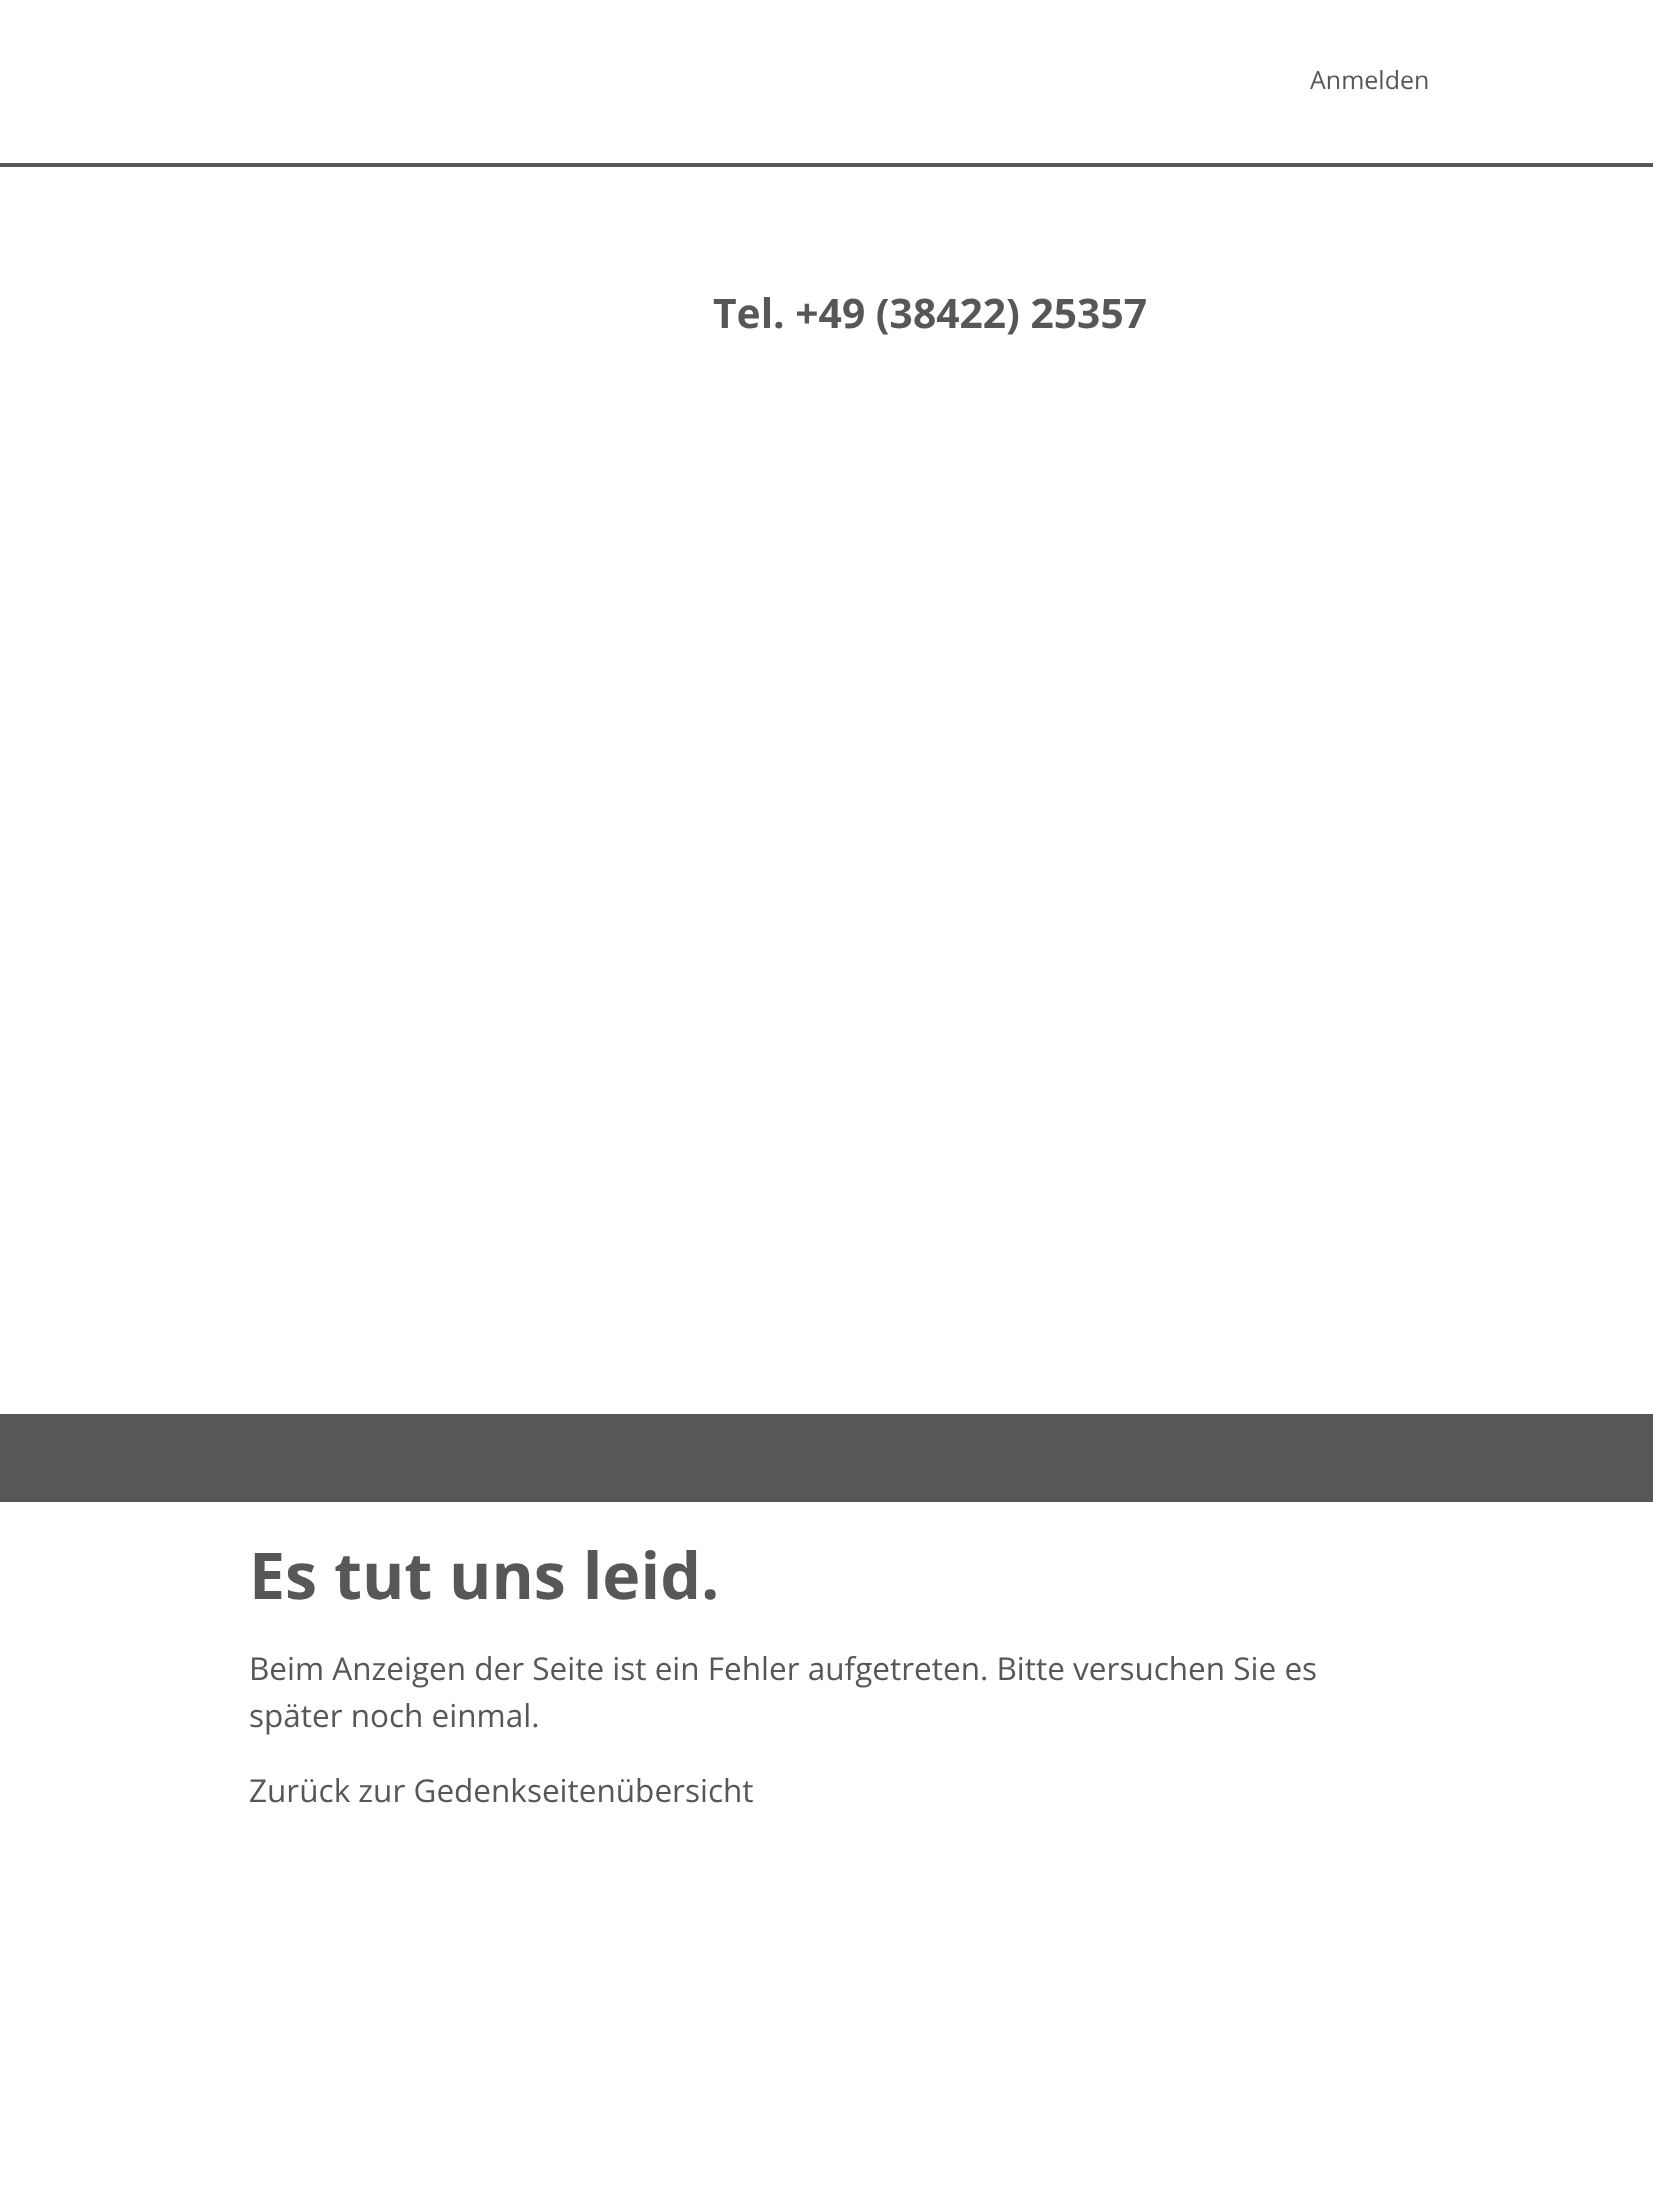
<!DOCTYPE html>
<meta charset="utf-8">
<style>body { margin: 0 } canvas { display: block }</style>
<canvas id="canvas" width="1653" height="2196"></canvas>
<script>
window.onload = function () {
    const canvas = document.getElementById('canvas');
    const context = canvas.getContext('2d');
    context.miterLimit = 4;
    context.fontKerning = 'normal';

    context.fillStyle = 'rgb(255, 255, 255)';
    context.fillRect(0, 0, 1653, 2196);
    context.fillStyle = 'rgb(87, 87, 86)';
    context.fillRect(0, 163, 1653, 4);
    context.fillRect(0, 1414, 1653, 88);
    context.font = '25px Open Sans';
    context.fillText('Anmelden', 1310, 89);
    context.font = 'bold 40.75px Open Sans';
    context.fillText('Tel. +49 (38422) 25357', 713, 328);
    context.font = 'bold 64.5px Open Sans';
    context.fillText('Es tut uns leid.', 249, 1599);
    context.font = '31.5px Open Sans';
    context.fillText('Beim Anzeigen der Seite ist ein Fehler aufgetreten. Bitte versuchen Sie es', 249, 1680);
    context.fillText('später noch einmal.', 249, 1727);
    context.fillText('Zurück zur Gedenkseitenübersicht', 249, 1802);
};
</script>
